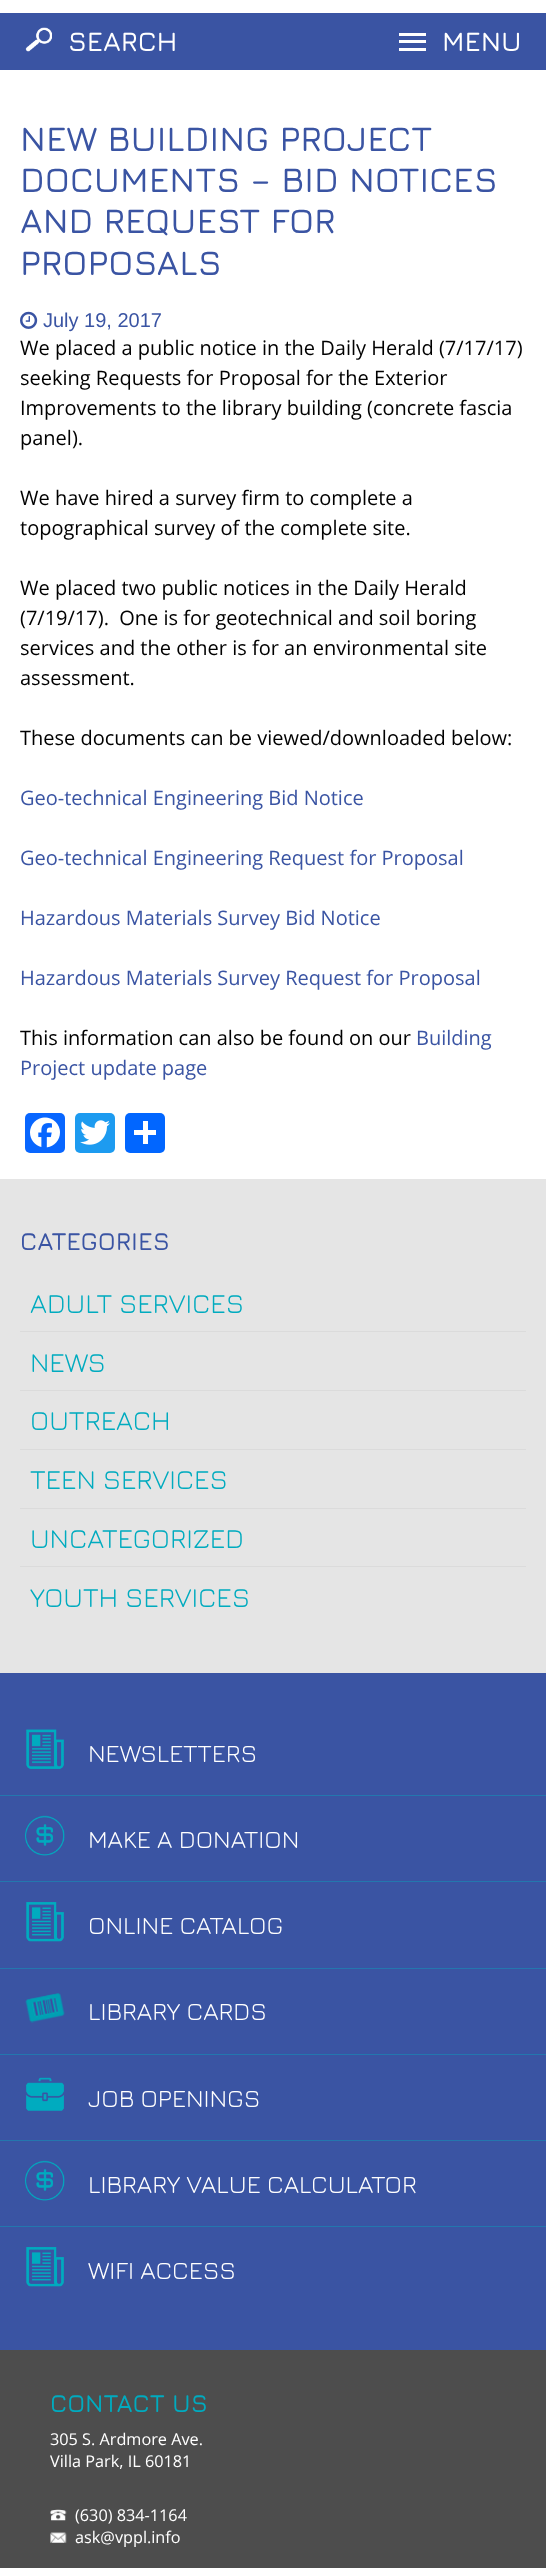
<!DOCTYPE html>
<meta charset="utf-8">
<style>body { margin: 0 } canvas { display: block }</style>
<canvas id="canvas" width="546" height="2568"></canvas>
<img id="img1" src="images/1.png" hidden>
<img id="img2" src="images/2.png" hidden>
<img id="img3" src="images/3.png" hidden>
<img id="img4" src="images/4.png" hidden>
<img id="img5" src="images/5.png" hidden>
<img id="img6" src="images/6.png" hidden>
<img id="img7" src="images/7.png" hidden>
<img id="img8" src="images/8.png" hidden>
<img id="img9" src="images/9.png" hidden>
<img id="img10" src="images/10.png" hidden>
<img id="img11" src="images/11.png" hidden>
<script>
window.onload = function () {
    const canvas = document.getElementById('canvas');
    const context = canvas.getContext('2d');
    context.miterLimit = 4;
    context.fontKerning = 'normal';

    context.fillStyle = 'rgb(77, 77, 77)';
    context.fillRect(0, 0, 546, 2568);
    context.fillStyle = 'rgb(255, 255, 255)';
    context.fillRect(0, 0, 546, 13);
    context.fillStyle = 'rgb(58, 84, 163)';
    context.fillRect(0, 13, 546, 57);
    context.drawImage(document.getElementById('img1'), 25, 27, 27, 25);
    context.fillStyle = 'rgb(255, 255, 255)';
    context.fillRect(399, 40, 27, 3);
    context.fillRect(399, 33, 27, 3);
    context.fillRect(399, 48, 27, 3);
    context.fillRect(0, 70, 546, 1109);
    context.drawImage(document.getElementById('img2'), 20, 311, 18, 18);
    context.fillStyle = 'rgb(8, 102, 255)';
    context.beginPath();
    context.roundRect(25, 1113, 40, 40, 5);
    context.fill();
    context.drawImage(document.getElementById('img3'), 30, 1117, 30, 31);
    context.fillStyle = 'rgb(29, 155, 240)';
    context.beginPath();
    context.roundRect(75, 1113, 40, 40, 5);
    context.fill();
    context.drawImage(document.getElementById('img4'), 80, 1120, 30, 25);
    context.fillStyle = 'rgb(1, 102, 255)';
    context.beginPath();
    context.roundRect(125, 1113, 40, 40, 5);
    context.fill();
    context.fillStyle = 'rgb(255, 255, 255)';
    context.fillRect(143, 1121, 5, 23);
    context.fillRect(134, 1130, 22, 5);
    context.fillStyle = 'rgb(229, 229, 229)';
    context.fillRect(0, 1179, 546, 494);
    context.fillStyle = 'rgb(219, 219, 219)';
    context.fillRect(20, 1331, 506, 1);
    context.fillRect(20, 1390, 506, 1);
    context.fillRect(20, 1449, 506, 1);
    context.fillRect(20, 1508, 506, 1);
    context.fillRect(20, 1566, 506, 1);
    context.fillStyle = 'rgb(58, 84, 163)';
    context.fillRect(0, 1673, 546, 677);
    context.fillStyle = 'rgb(35, 119, 174)';
    context.fillRect(0, 1795, 546, 1);
    context.drawImage(document.getElementById('img5'), 26, 1729, 38, 40);
    context.fillRect(0, 1881, 546, 1);
    context.drawImage(document.getElementById('img6'), 25, 1815, 40, 41);
    context.fillRect(0, 1968, 546, 1);
    context.drawImage(document.getElementById('img7'), 26, 1902, 38, 40);
    context.fillRect(0, 2054, 546, 1);
    context.drawImage(document.getElementById('img8'), 25, 1993, 40, 30);
    context.fillRect(0, 2140, 546, 1);
    context.drawImage(document.getElementById('img9'), 26, 2077, 38, 34);
    context.fillRect(0, 2226, 546, 1);
    context.drawImage(document.getElementById('img6'), 25, 2160, 40, 41);
    context.drawImage(document.getElementById('img7'), 26, 2247, 38, 40);
    context.drawImage(document.getElementById('img10'), 50, 2509, 17, 12);
    context.drawImage(document.getElementById('img11'), 50, 2532, 17, 11);
    context.font = '600 27.5px Jura';
    context.fillStyle = 'rgb(255, 255, 255)';
    context.fillText('SEARCH', 68, 51);
    context.fillText('MENU', 442, 51);
    context.font = '600 35px Jura';
    context.fillStyle = 'rgb(58, 84, 163)';
    context.fillText('NEW BUILDING PROJECT', 20, 151);
    context.fillText('DOCUMENTS – BID NOTICES', 20, 192);
    context.fillText('AND REQUEST FOR', 20, 233);
    context.fillText('PROPOSALS', 20, 275);
    context.font = '20px Liberation Sans';
    context.fillText('July 19, 2017', 43, 327);
    context.font = '20px Open Sans';
    context.fillStyle = 'rgb(0, 0, 0)';
    context.fillText('We placed a public notice in the Daily Herald (7/17/17)', 20, 355);
    context.fillText('seeking Requests for Proposal for the Exterior', 20, 385);
    context.fillText('Improvements to the library building (concrete fascia', 20, 415);
    context.fillText('panel).', 20, 445);
    context.fillText('We have hired a survey firm to complete a', 20, 505);
    context.fillText('topographical survey of the complete site.', 20, 535);
    context.fillText('We placed two public notices in the Daily Herald', 20, 595);
    context.fillText('(7/19/17).  One is for geotechnical and soil boring', 20, 625);
    context.fillText('services and the other is for an environmental site', 20, 655);
    context.fillText('assessment.', 20, 685);
    context.fillText('These documents can be viewed/downloaded below:', 20, 745);
    context.fillStyle = 'rgb(58, 84, 163)';
    context.fillText('Geo-technical Engineering Bid Notice', 20, 805);
    context.fillText('Geo-technical Engineering Request for Proposal', 20, 865);
    context.fillText('Hazardous Materials Survey Bid Notice', 20, 925);
    context.fillText('Hazardous Materials Survey Request for Proposal', 20, 985);
    context.fillStyle = 'rgb(0, 0, 0)';
    context.fillText('This information can also be found on our', 20, 1045);
    context.fillStyle = 'rgb(58, 84, 163)';
    context.fillText('Building', 416, 1045);
    context.fillText('Project update page', 20, 1075);
    context.font = '600 25px Jura';
    context.fillText('CATEGORIES', 20, 1250);
    context.font = '27.5px Jura';
    context.fillStyle = 'rgb(0, 171, 191)';
    context.fillText('ADULT SERVICES', 30, 1313);
    context.fillText('NEWS', 30, 1372);
    context.fillText('OUTREACH', 30, 1430);
    context.fillText('TEEN SERVICES', 30, 1489);
    context.fillText('UNCATEGORIZED', 30, 1548);
    context.fillText('YOUTH SERVICES', 30, 1607);
    context.font = '25px Jura';
    context.fillStyle = 'rgb(255, 255, 255)';
    context.fillText('NEWSLETTERS', 88, 1762);
    context.fillText('MAKE A DONATION', 88, 1848);
    context.fillText('ONLINE CATALOG', 88, 1934);
    context.fillText('LIBRARY CARDS', 88, 2020);
    context.fillText('JOB OPENINGS', 88, 2107);
    context.fillText('LIBRARY VALUE CALCULATOR', 88, 2193);
    context.fillText('WIFI ACCESS', 88, 2279);
    context.font = '600 25px Jura';
    context.fillStyle = 'rgb(0, 171, 191)';
    context.fillText('CONTACT US', 50, 2412);
    context.font = '16.25px Open Sans';
    context.fillStyle = 'rgb(255, 255, 255)';
    context.fillText('305 S. Ardmore Ave.', 50, 2445);
    context.fillText('Villa Park, IL 60181', 50, 2467);
    context.fillText('(630) 834-1164', 75, 2521);
    context.fillText('ask@vppl.info', 75, 2543);
};
</script>
